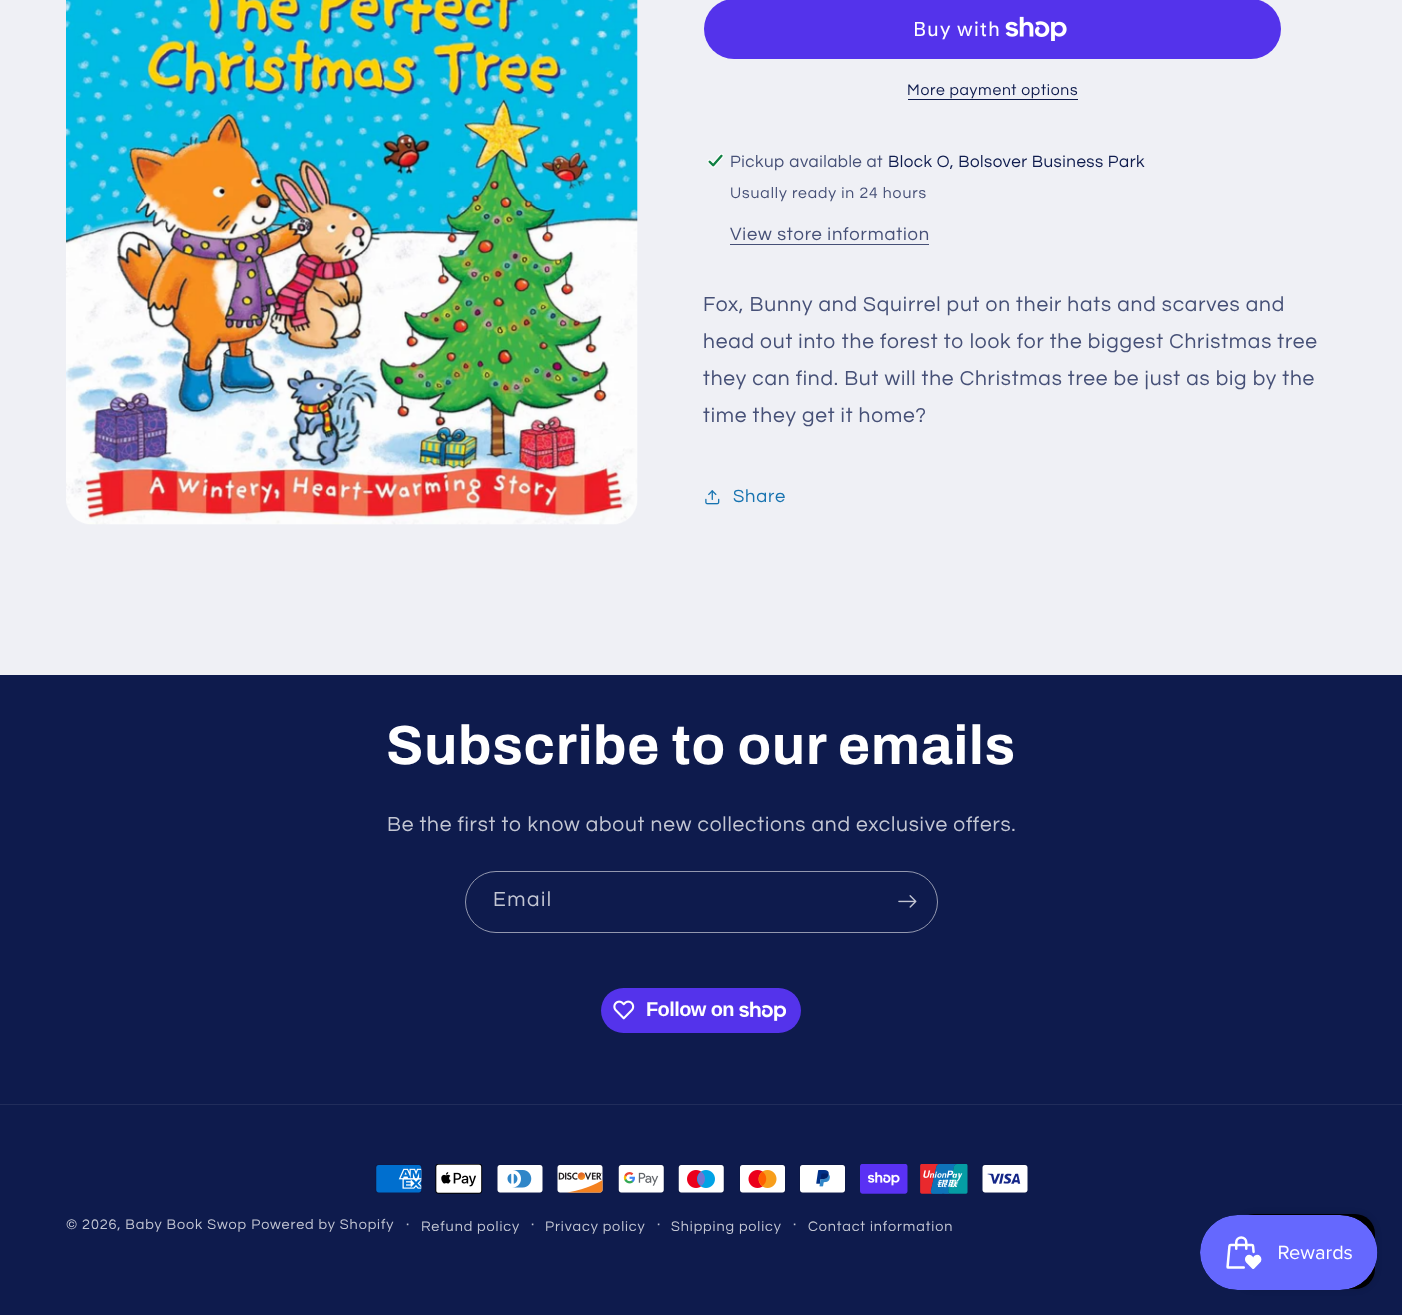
<!DOCTYPE html>
<meta charset="utf-8">
<style>body { margin: 0 } canvas { display: block }</style>
<canvas id="canvas" width="1402" height="1315"></canvas>
<img id="img1" src="images/1.png" hidden>
<img id="img2" src="images/2.png" hidden>
<img id="img3" src="images/3.png" hidden>
<img id="img4" src="images/4.png" hidden>
<img id="img5" src="images/5.png" hidden>
<img id="img6" src="images/6.png" hidden>
<img id="img7" src="images/7.png" hidden>
<img id="img8" src="images/8.png" hidden>
<img id="img9" src="images/9.png" hidden>
<img id="img10" src="images/10.png" hidden>
<img id="img11" src="images/11.png" hidden>
<img id="img12" src="images/12.png" hidden>
<img id="img13" src="images/13.png" hidden>
<img id="img14" src="images/14.png" hidden>
<img id="img15" src="images/15.png" hidden>
<img id="img16" src="images/16.png" hidden>
<img id="img17" src="images/17.png" hidden>
<img id="img18" src="images/18.png" hidden>
<img id="img19" src="images/19.png" hidden>
<script>
window.onload = function () {
    const canvas = document.getElementById('canvas');
    const context = canvas.getContext('2d');
    context.miterLimit = 4;
    context.fontKerning = 'normal';

    context.fillStyle = 'rgb(239, 240, 245)';
    context.fillRect(0, 0, 1402, 1315);
    context.drawImage(document.getElementById('img1'), 66, 0, 572, 525);
    context.fillStyle = 'rgb(84, 51, 235)';
    context.beginPath();
    context.roundRect(704, -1, 577, 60, 30);
    context.fill();
    context.drawImage(document.getElementById('img2'), 1005, 16, 62, 25);
    context.fillStyle = 'rgb(14, 27, 77)';
    context.fillRect(908, 99, 170, 1);
    context.drawImage(document.getElementById('img3'), 707, 153, 17, 15);
    context.fillStyle = 'rgb(70, 80, 119)';
    context.fillRect(730, 244, 199, 1);
    context.drawImage(document.getElementById('img4'), 705, 490, 15, 15);
    context.fillStyle = 'rgb(14, 27, 77)';
    context.fillRect(0, 675, 1402, 640);
    context.beginPath();
    context.roundRect(465.5, 871.5, 472, 61, 30.5);
    context.strokeStyle = 'rgb(147, 152, 175)';
    context.stroke();
    context.drawImage(document.getElementById('img5'), 898, 895, 19, 13);
    context.fillStyle = 'rgb(84, 51, 235)';
    context.beginPath();
    context.roundRect(601, 988, 200, 45, 22.5);
    context.fill();
    context.drawImage(document.getElementById('img6'), 613, 1000, 22, 20);
    context.drawImage(document.getElementById('img7'), 739, 1001, 47, 20);
    context.fillStyle = 'rgb(33, 45, 91)';
    context.fillRect(0, 1104, 1402, 1);
    context.drawImage(document.getElementById('img8'), 375, 1164, 47, 29);
    context.drawImage(document.getElementById('img9'), 435, 1164, 48, 30);
    context.drawImage(document.getElementById('img10'), 497, 1164, 46, 29);
    context.drawImage(document.getElementById('img11'), 557, 1164, 46, 29);
    context.drawImage(document.getElementById('img12'), 618, 1164, 47, 29);
    context.drawImage(document.getElementById('img13'), 678, 1164, 47, 29);
    context.drawImage(document.getElementById('img14'), 739, 1164, 47, 29);
    context.drawImage(document.getElementById('img15'), 799, 1164, 47, 29);
    context.drawImage(document.getElementById('img16'), 860, 1164, 48, 30);
    context.drawImage(document.getElementById('img17'), 920, 1164, 48, 30);
    context.drawImage(document.getElementById('img18'), 982, 1164, 46, 29);
    context.fillStyle = 'rgba(0, 0, 0, 0.15)';
    context.filter = 'blur(3px)';
    context.beginPath();
    context.roundRect(1234, 1214, 141, 75, 20);
    context.fill();
    context.filter = 'none';
    context.fillStyle = 'rgb(0, 0, 0)';
    context.beginPath();
    context.roundRect(1234, 1214, 141, 75, 20);
    context.fill();
    context.drawImage(document.getElementById('img19'), 1200, 1215, 178, 75);
    context.letterSpacing = '0.8px';
    context.font = '20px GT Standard';
    context.fillStyle = 'rgb(255, 255, 255)';
    context.fillText('Buy with', 913, 36);
    context.letterSpacing = '0.7px';
    context.font = '15.75px Questrial';
    context.fillStyle = 'rgb(14, 27, 77)';
    context.fillText('More payment options', 907, 95);
    context.letterSpacing = '0.5px';
    context.font = '17px Questrial';
    context.fillStyle = 'rgb(70, 80, 119)';
    context.fillText('Pickup available at', 730, 167);
    context.fillStyle = 'rgb(14, 27, 77)';
    context.fillText('Block O, Bolsover Business Park', 888, 167);
    context.letterSpacing = '0.9px';
    context.font = '15.75px Questrial';
    context.fillStyle = 'rgb(70, 80, 119)';
    context.fillText('Usually ready in 24 hours', 730, 198);
    context.letterSpacing = '0.8px';
    context.font = '18.4px Questrial';
    context.fillText('View store information', 730, 240);
    context.font = '21px Questrial';
    context.fillText('Fox, Bunny and Squirrel put on their hats and scarves and', 703, 311);
    context.fillText('head out into the forest to look for the biggest Christmas tree', 703, 348);
    context.fillText('they can find. But will the Christmas tree be just as big by the', 703, 385);
    context.fillText('time they get it home?', 703, 422);
    context.font = '18.4px Questrial';
    context.fillStyle = 'rgb(23, 115, 176)';
    context.fillText('Share', 733, 502);
    context.font = 'bold 55px Archivo';
    context.fillStyle = 'rgb(255, 255, 255)';
    context.fillText('Subscribe to our emails', 386, 764);
    context.font = '21px Questrial';
    context.fillStyle = 'rgb(195, 198, 211)';
    context.fillText('Be the first to know about new collections and exclusive offers.', 387, 831);
    context.letterSpacing = '1.5px';
    context.fillText('Email', 493, 906);
    context.letterSpacing = '-0.6px';
    context.font = 'bold 20px Liberation Sans';
    context.fillStyle = 'rgb(255, 255, 255)';
    context.fillText('Follow on', 646, 1016);
    context.letterSpacing = '0.9px';
    context.font = '14.4px Questrial';
    context.fillStyle = 'rgb(195, 198, 211)';
    context.fillText('© 2026, Baby Book Swop Powered by Shopify', 66, 1229);
    context.font = '15.75px Questrial';
    context.fillText('·', 406, 1229);
    context.font = '14.4px Questrial';
    context.fillText('Refund policy', 421, 1231);
    context.font = '15.75px Questrial';
    context.fillText('·', 531, 1229);
    context.font = '14.4px Questrial';
    context.fillText('Privacy policy', 545, 1231);
    context.font = '15.75px Questrial';
    context.fillText('·', 657, 1229);
    context.font = '14.4px Questrial';
    context.fillText('Shipping policy', 671, 1231);
    context.font = '15.75px Questrial';
    context.fillText('·', 793, 1229);
    context.font = '14.4px Questrial';
    context.fillText('Contact information', 808, 1231);
};
</script>
